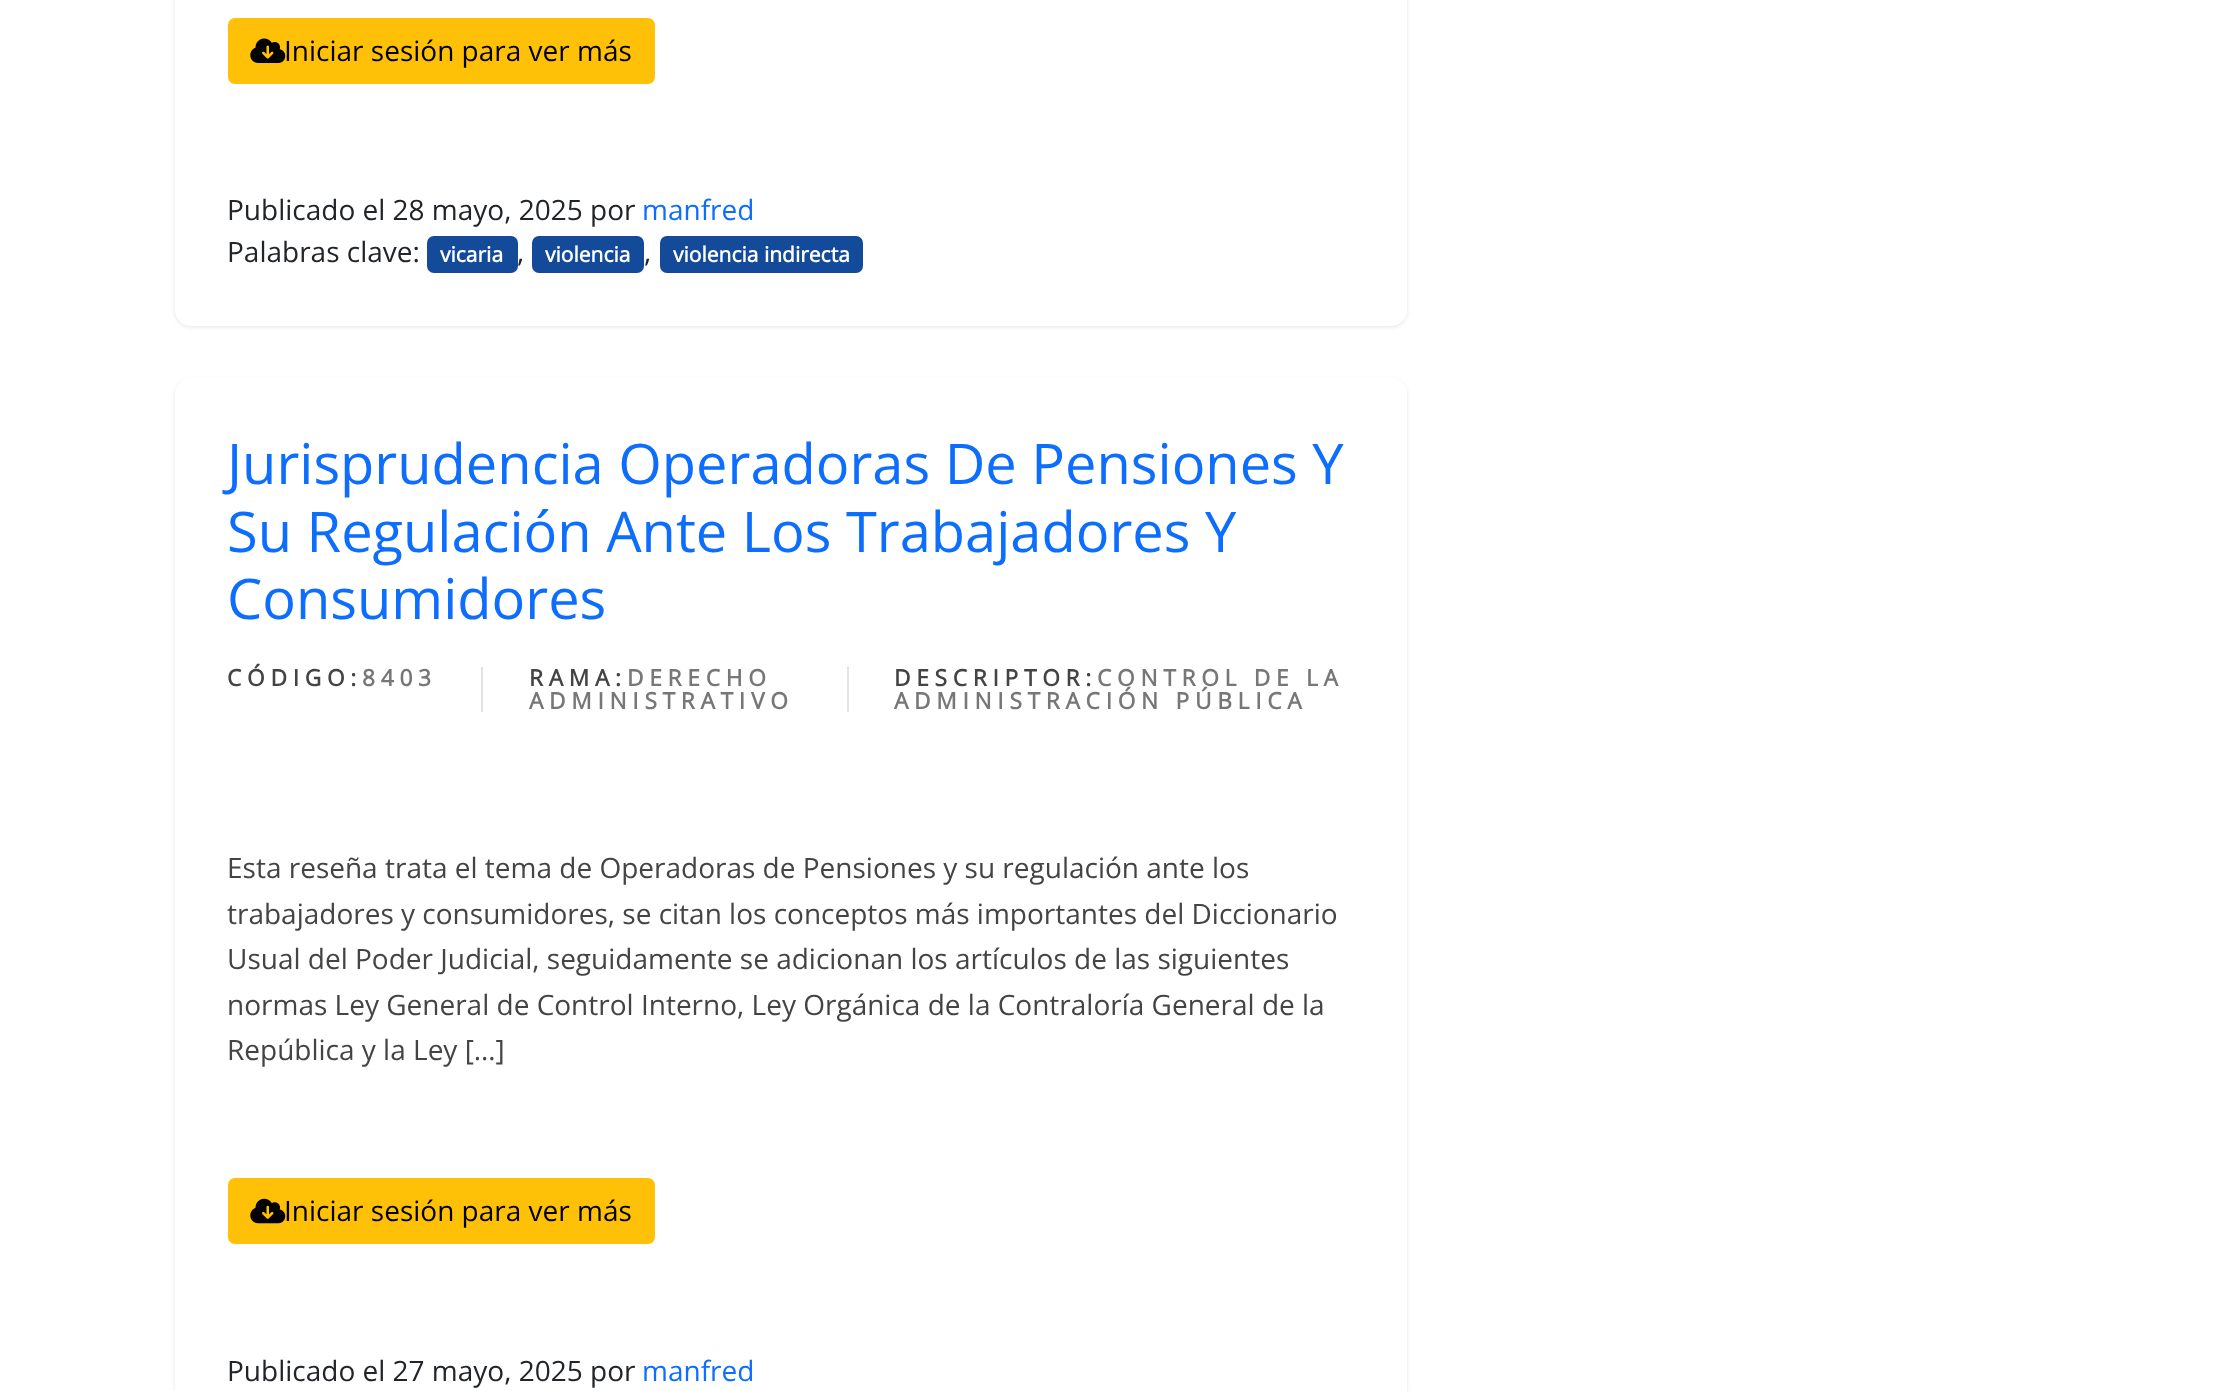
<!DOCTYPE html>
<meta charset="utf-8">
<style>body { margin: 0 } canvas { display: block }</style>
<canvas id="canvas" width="2216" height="1391"></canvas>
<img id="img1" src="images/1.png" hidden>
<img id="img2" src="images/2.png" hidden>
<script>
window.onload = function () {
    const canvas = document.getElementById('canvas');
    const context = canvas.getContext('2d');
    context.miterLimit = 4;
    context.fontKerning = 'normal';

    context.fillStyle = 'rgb(255, 255, 255)';
    context.fillRect(0, 0, 2216, 1391);
    context.fillStyle = 'rgba(0, 0, 0, 0.1)';
    context.filter = 'blur(2px)';
    context.beginPath();
    context.roundRect(175, -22, 1232, 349, 16);
    context.fill();
    context.filter = 'none';
    context.fillStyle = 'rgb(255, 255, 255)';
    context.beginPath();
    context.roundRect(175, -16, 1232, 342, 16);
    context.fill();
    context.fillStyle = 'rgb(255, 193, 7)';
    context.beginPath();
    context.roundRect(229, 19, 425, 64, 6);
    context.fill();
    context.strokeStyle = 'rgb(255, 193, 7)';
    context.lineWidth = 2;
    context.stroke();
    context.drawImage(document.getElementById('img1'), 250, 38, 36, 25);
    context.fillStyle = 'rgb(19, 74, 153)';
    context.beginPath();
    context.roundRect(427, 236, 91, 37, 7);
    context.fill();
    context.beginPath();
    context.roundRect(532, 236, 112, 37, 7);
    context.fill();
    context.beginPath();
    context.roundRect(660, 236, 203, 37, 7);
    context.fill();
    context.fillStyle = 'rgba(0, 0, 0, 0.1)';
    context.filter = 'blur(2px)';
    context.beginPath();
    context.roundRect(175, 380, 1232, 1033, 16);
    context.fill();
    context.filter = 'none';
    context.fillStyle = 'rgb(255, 255, 255)';
    context.beginPath();
    context.roundRect(175, 378, 1232, 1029, 16);
    context.fill();
    context.fillStyle = 'rgb(227, 227, 227)';
    context.fillRect(481, 667, 2, 45);
    context.fillRect(847, 667, 2, 45);
    context.fillStyle = 'rgb(255, 193, 7)';
    context.beginPath();
    context.roundRect(229, 1179, 425, 64, 6);
    context.fill();
    context.stroke();
    context.drawImage(document.getElementById('img2'), 250, 1198, 36, 26);
    context.font = '28px Open Sans';
    context.fillStyle = 'rgb(0, 0, 0)';
    context.fillText('Iniciar sesión para ver más', 284, 61);
    context.fillStyle = 'rgb(33, 37, 41)';
    context.fillText('Publicado el 28 mayo, 2025 por', 227, 220);
    context.fillStyle = 'rgb(13, 110, 253)';
    context.fillText('manfred', 642, 220);
    context.fillStyle = 'rgb(33, 37, 41)';
    context.fillText('Palabras clave:', 227, 262);
    context.font = 'bold 21px Open Sans';
    context.fillStyle = 'rgb(255, 255, 255)';
    context.fillText('vicaria', 440, 262);
    context.font = '28px Open Sans';
    context.fillStyle = 'rgb(33, 37, 41)';
    context.fillText(',', 517, 262);
    context.font = 'bold 21px Open Sans';
    context.fillStyle = 'rgb(255, 255, 255)';
    context.fillText('violencia', 545, 262);
    context.font = '28px Open Sans';
    context.fillStyle = 'rgb(33, 37, 41)';
    context.fillText(',', 644, 262);
    context.font = 'bold 21px Open Sans';
    context.fillStyle = 'rgb(255, 255, 255)';
    context.fillText('violencia indirecta', 673, 262);
    context.font = '56px Open Sans';
    context.fillStyle = 'rgb(13, 110, 253)';
    context.fillText('Jurisprudencia Operadoras De Pensiones Y', 227, 484);
    context.fillText('Su Regulación Ante Los Trabajadores Y', 227, 552);
    context.fillText('Consumidores', 227, 619);
    context.letterSpacing = '5.7px';
    context.font = 'bold 22.75px Open Sans';
    context.fillStyle = 'rgb(68, 68, 68)';
    context.fillText('CÓDIGO:', 227, 686);
    context.fillStyle = 'rgb(119, 119, 119)';
    context.fillText('8403', 362, 686);
    context.fillStyle = 'rgb(68, 68, 68)';
    context.fillText('RAMA:', 529, 686);
    context.fillStyle = 'rgb(119, 119, 119)';
    context.fillText('DERECHO', 627, 686);
    context.fillText('ADMINISTRATIVO', 529, 709);
    context.fillStyle = 'rgb(68, 68, 68)';
    context.fillText('DESCRIPTOR:', 894, 686);
    context.fillStyle = 'rgb(119, 119, 119)';
    context.fillText('CONTROL DE LA', 1097, 686);
    context.fillText('ADMINISTRACIÓN PÚBLICA', 894, 709);
    context.letterSpacing = '0px';
    context.font = '28px Open Sans';
    context.fillStyle = 'rgb(68, 68, 68)';
    context.fillText('Esta reseña trata el tema de Operadoras de Pensiones y su regulación ante los', 227, 878);
    context.fillText('trabajadores y consumidores, se citan los conceptos más importantes del Diccionario', 227, 924);
    context.fillText('Usual del Poder Judicial, seguidamente se adicionan los artículos de las siguientes', 227, 969);
    context.fillText('normas Ley General de Control Interno, Ley Orgánica de la Contraloría General de la', 227, 1015);
    context.fillText('República y la Ley […]', 227, 1060);
    context.fillStyle = 'rgb(0, 0, 0)';
    context.fillText('Iniciar sesión para ver más', 284, 1221);
    context.fillStyle = 'rgb(33, 37, 41)';
    context.fillText('Publicado el 27 mayo, 2025 por', 227, 1381);
    context.fillStyle = 'rgb(13, 110, 253)';
    context.fillText('manfred', 642, 1381);
};
</script>
